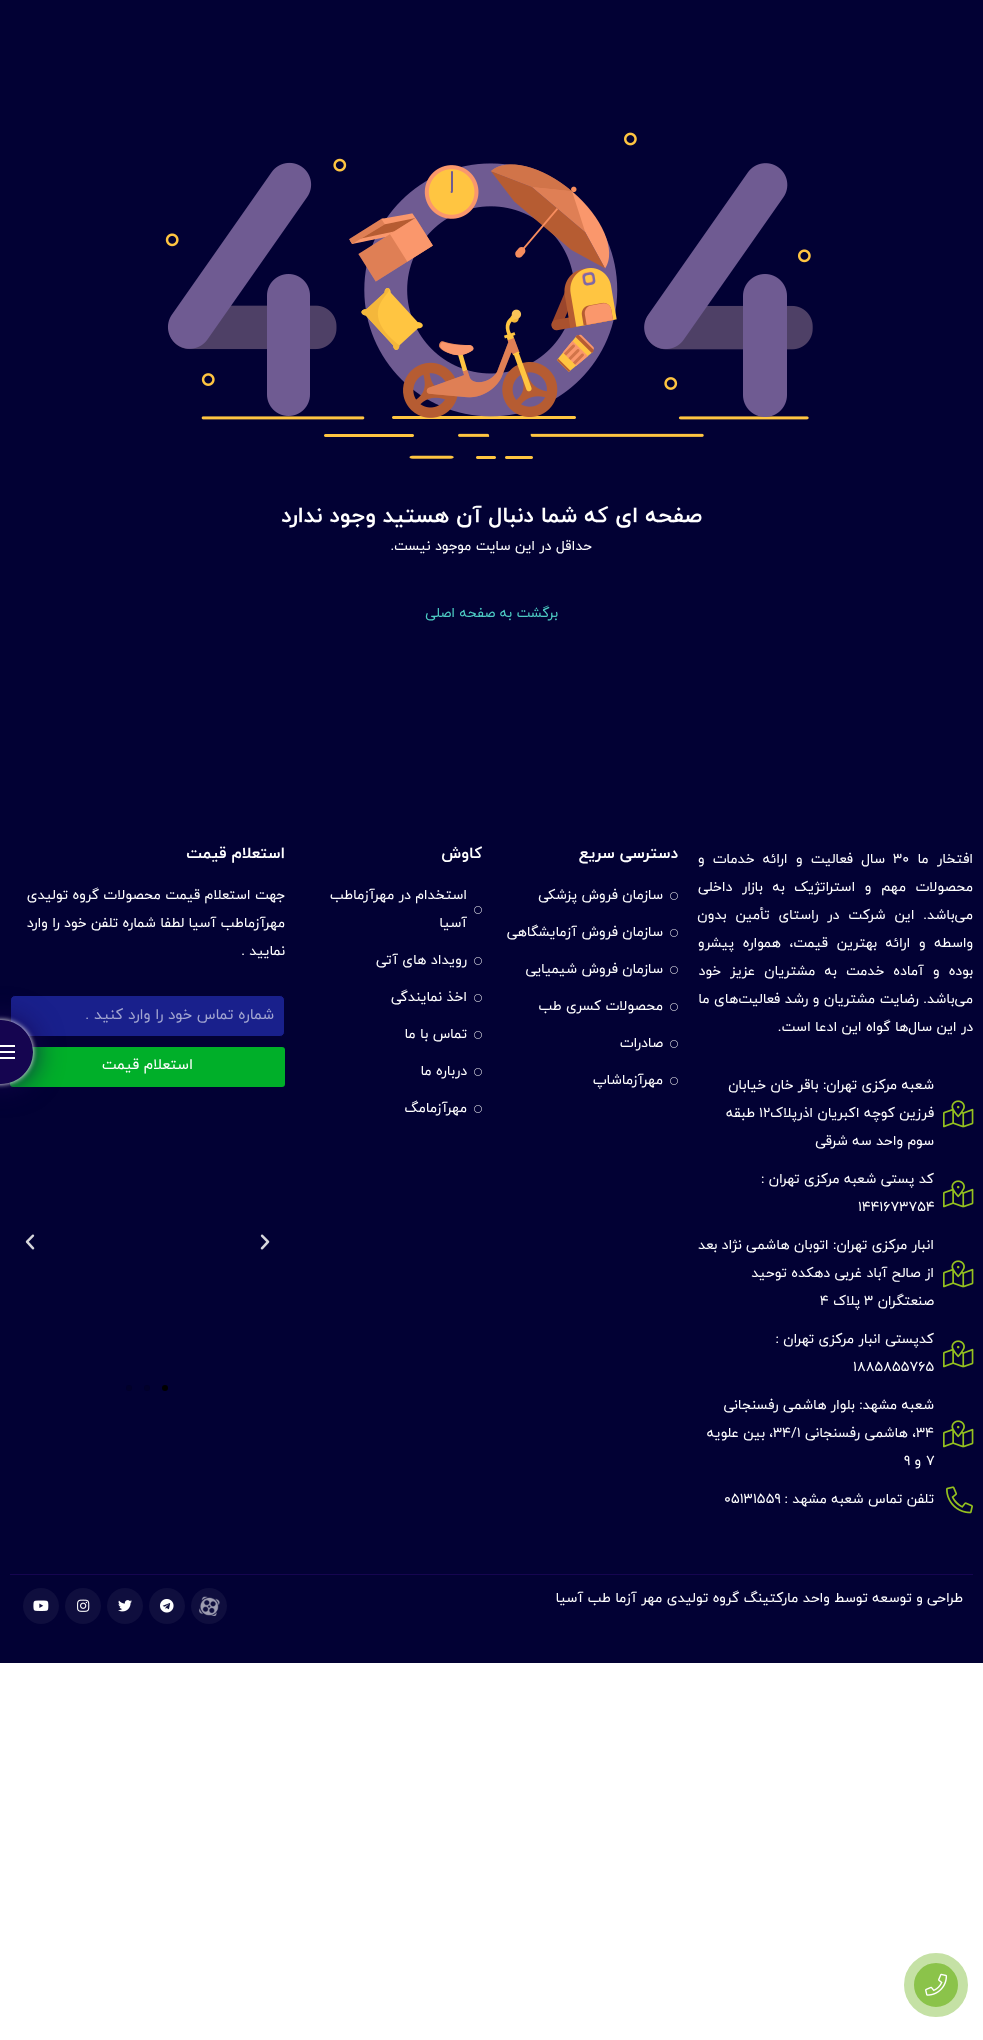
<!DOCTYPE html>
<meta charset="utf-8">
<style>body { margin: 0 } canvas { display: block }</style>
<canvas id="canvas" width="983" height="2040"></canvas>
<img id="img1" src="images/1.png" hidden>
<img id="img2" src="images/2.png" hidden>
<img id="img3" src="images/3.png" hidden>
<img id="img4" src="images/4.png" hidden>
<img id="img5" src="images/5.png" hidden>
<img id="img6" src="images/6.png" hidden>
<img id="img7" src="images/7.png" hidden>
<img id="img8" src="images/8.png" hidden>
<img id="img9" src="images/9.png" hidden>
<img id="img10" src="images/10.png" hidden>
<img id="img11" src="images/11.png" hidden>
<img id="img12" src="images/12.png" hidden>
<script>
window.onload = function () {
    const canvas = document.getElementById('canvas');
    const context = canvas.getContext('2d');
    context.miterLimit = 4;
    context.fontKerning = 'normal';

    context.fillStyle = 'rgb(255, 255, 255)';
    context.fillRect(0, 0, 983, 2040);
    context.fillStyle = 'rgb(2, 1, 52)';
    context.fillRect(0, 0, 983, 1663);
    context.drawImage(document.getElementById('img1'), 165, 132, 648, 327);
    context.drawImage(document.getElementById('img2'), 943, 1100, 31, 28);
    context.drawImage(document.getElementById('img2'), 943, 1180, 31, 28);
    context.drawImage(document.getElementById('img2'), 943, 1260, 31, 28);
    context.drawImage(document.getElementById('img2'), 943, 1340, 31, 28);
    context.drawImage(document.getElementById('img2'), 943, 1420, 31, 28);
    context.drawImage(document.getElementById('img3'), 946, 1486, 27, 28);
    context.drawImage(document.getElementById('img4'), 670, 892, 8, 8);
    context.drawImage(document.getElementById('img4'), 670, 929, 8, 8);
    context.drawImage(document.getElementById('img4'), 670, 966, 8, 8);
    context.drawImage(document.getElementById('img4'), 670, 1003, 8, 8);
    context.drawImage(document.getElementById('img4'), 670, 1040, 8, 8);
    context.drawImage(document.getElementById('img4'), 670, 1077, 8, 8);
    context.drawImage(document.getElementById('img4'), 474, 906, 8, 8);
    context.drawImage(document.getElementById('img4'), 474, 957, 8, 8);
    context.drawImage(document.getElementById('img4'), 474, 994, 8, 8);
    context.drawImage(document.getElementById('img4'), 474, 1031, 8, 8);
    context.drawImage(document.getElementById('img4'), 474, 1068, 8, 8);
    context.drawImage(document.getElementById('img4'), 474, 1105, 8, 8);
    context.fillStyle = 'rgb(25, 32, 140)';
    context.beginPath();
    context.roundRect(10.5, 995.5, 274, 41, 4.5);
    context.fill();
    context.strokeStyle = 'rgb(2, 1, 52)';
    context.stroke();
    context.fillStyle = 'rgb(0, 175, 41)';
    context.beginPath();
    context.roundRect(10, 1047, 275, 40, 3);
    context.fill();
    context.drawImage(document.getElementById('img5'), 260, 1234, 10, 16);
    context.drawImage(document.getElementById('img6'), 25, 1234, 10, 16);
    context.fillStyle = 'rgb(0, 0, 0)';
    context.beginPath();
    context.arc(165, 1388, 3, 0, 2 * Math.PI);
    context.fill();
    context.fillStyle = 'rgb(2, 1, 42)';
    context.beginPath();
    context.arc(147, 1388, 3, 0, 2 * Math.PI);
    context.fill();
    context.beginPath();
    context.arc(129, 1388, 3, 0, 2 * Math.PI);
    context.fill();
    context.fillStyle = 'rgb(21, 5, 80)';
    context.fillRect(10, 1574, 963, 1);
    context.fillStyle = 'rgb(15, 14, 62)';
    context.beginPath();
    context.arc(209, 1606, 18, 0, 2 * Math.PI);
    context.fill();
    context.drawImage(document.getElementById('img7'), 199, 1596, 21, 20);
    context.beginPath();
    context.arc(167, 1606, 18, 0, 2 * Math.PI);
    context.fill();
    context.drawImage(document.getElementById('img8'), 160, 1599, 14, 14);
    context.beginPath();
    context.arc(125, 1606, 18, 0, 2 * Math.PI);
    context.fill();
    context.drawImage(document.getElementById('img9'), 118, 1600, 14, 12);
    context.beginPath();
    context.arc(83, 1606, 18, 0, 2 * Math.PI);
    context.fill();
    context.drawImage(document.getElementById('img10'), 77, 1599, 13, 13);
    context.beginPath();
    context.arc(41, 1606, 18, 0, 2 * Math.PI);
    context.fill();
    context.drawImage(document.getElementById('img11'), 33, 1600, 16, 11);
    context.fillStyle = 'rgb(21, 5, 80)';
    context.filter = 'blur(15px)';
    context.beginPath();
    context.roundRect(-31, 1020, 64, 64, 32);
    context.fill();
    context.filter = 'none';
    context.beginPath();
    context.arc(1, 1052, 32, 0, 2 * Math.PI);
    context.fill();
    context.save();
    context.beginPath();
    context.moveTo(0, 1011);
    context.lineTo(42, 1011);
    context.lineTo(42, 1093);
    context.lineTo(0, 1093);
    context.closePath();
    context.moveTo(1, 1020);
    context.bezierCurveTo(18.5, 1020, 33, 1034.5, 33, 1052);
    context.bezierCurveTo(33, 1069.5, 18.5, 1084, 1, 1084);
    context.bezierCurveTo(-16.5, 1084, -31, 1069.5, -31, 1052);
    context.bezierCurveTo(-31, 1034.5, -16.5, 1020, 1, 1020);
    context.closePath();
    context.clip('evenodd');
    context.fillStyle = 'rgb(255, 255, 255)';
    context.filter = 'blur(2.5px)';
    context.beginPath();
    context.roundRect(-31, 1020, 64, 64, 32);
    context.fill();
    context.filter = 'none';
    context.restore();
    context.fillStyle = 'rgb(255, 255, 255)';
    context.fillRect(0, 1045, 15, 2);
    context.fillRect(0, 1051, 15, 2);
    context.fillRect(0, 1057, 15, 2);
    context.fillStyle = 'rgb(139, 195, 74)';
    context.beginPath();
    context.arc(936, 1985, 27, 0, 2 * Math.PI);
    context.fill();
    context.strokeStyle = 'rgb(197, 225, 165)';
    context.lineWidth = 10;
    context.stroke();
    context.drawImage(document.getElementById('img12'), 925, 1973, 23, 23);
    context.direction = 'rtl';
    context.font = 'bold 22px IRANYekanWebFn';
    context.fillStyle = 'rgb(255, 255, 255)';
    context.fillText('صفحه ای که شما دنبال آن هستید وجود ندارد', 702, 522);
    context.font = '14px IRANYekanWebFn';
    context.fillText('حداقل در این سایت موجود نیست.', 592, 550);
    context.fillStyle = 'rgb(78, 205, 196)';
    context.fillText('برگشت به صفحه اصلی', 558, 617);
    context.wordSpacing = '4px';
    context.fillStyle = 'rgb(255, 255, 255)';
    context.fillText('افتخار ما', 973, 863);
    context.wordSpacing = '0px';
    context.direction = 'ltr';
    context.fillText('۳۰', 893, 863);
    context.wordSpacing = '4px';
    context.direction = 'rtl';
    context.fillText('سال فعالیت و ارائه خدمات و', 885, 863);
    context.wordSpacing = '5.25px';
    context.fillText('محصولات مهم و استراتژیک به بازار داخلی', 973, 891);
    context.wordSpacing = '4.5px';
    context.fillText('می‌باشد. این شرکت در راستای تأمین بدون', 973, 919);
    context.wordSpacing = '4.25px';
    context.fillText('واسطه و ارائه بهترین قیمت، همواره پیشرو', 973, 947);
    context.wordSpacing = '4.75px';
    context.fillText('بوده و آماده خدمت به مشتریان عزیز خود', 973, 975);
    context.wordSpacing = '0.25px';
    context.fillText('می‌باشد. رضایت مشتریان و رشد فعالیت‌های ما', 973, 1003);
    context.wordSpacing = '0px';
    context.fillText('در این سال‌ها گواه این ادعا است.', 973, 1031);
    context.fillText('شعبه مرکزی تهران: باقر خان خیابان', 934, 1089);
    context.fillText('فرزین کوچه اکبریان اذرپلاک', 934, 1117);
    context.direction = 'ltr';
    context.fillText('۱۲', 759, 1117);
    context.direction = 'rtl';
    context.fillText('طبقه', 755, 1117);
    context.fillText('سوم واحد سه شرقی', 934, 1145);
    context.fillText('کد پستی شعبه مرکزی تهران :', 934, 1183);
    context.direction = 'ltr';
    context.fillText('۱۴۴۱۶۷۳۷۵۴', 858, 1211);
    context.direction = 'rtl';
    context.fillText('انبار مرکزی تهران: اتوبان هاشمی نژاد بعد', 934, 1249);
    context.fillText('از صالح آباد غربی دهکده توحید', 934, 1277);
    context.fillText('صنعتگران', 934, 1305);
    context.direction = 'ltr';
    context.fillText('۳', 864, 1305);
    context.direction = 'rtl';
    context.fillText('پلاک', 860, 1305);
    context.direction = 'ltr';
    context.fillText('۴', 820, 1305);
    context.direction = 'rtl';
    context.fillText('کدپستی انبار مرکزی تهران :', 934, 1343);
    context.direction = 'ltr';
    context.fillText('۱۸۸۵۸۵۵۷۶۵', 853, 1371);
    context.direction = 'rtl';
    context.fillText('شعبه مشهد: بلوار هاشمی رفسنجانی', 934, 1409);
    context.direction = 'ltr';
    context.fillText('34', 916, 1437);
    context.direction = 'rtl';
    context.fillText('، هاشمی رفسنجانی', 916, 1437);
    context.direction = 'ltr';
    context.fillText('34/1', 773, 1437);
    context.direction = 'rtl';
    context.fillText('، بین علویه', 773, 1437);
    context.direction = 'ltr';
    context.fillText('7', 926, 1465);
    context.direction = 'rtl';
    context.fillText('و', 921, 1465);
    context.direction = 'ltr';
    context.fillText('9', 904, 1465);
    context.direction = 'rtl';
    context.fillText('تلفن تماس شعبه مشهد :', 934, 1503);
    context.direction = 'ltr';
    context.fillText('05131559', 724, 1503);
    context.direction = 'rtl';
    context.font = 'bold 16px IRANYekanWebFn';
    context.fillText('دسترسی سریع', 678, 858);
    context.font = '14px IRANYekanWebFn';
    context.fillText('سازمان فروش پزشکی', 663, 899);
    context.fillText('سازمان فروش آزمایشگاهی', 663, 936);
    context.fillText('سازمان فروش شیمیایی', 663, 973);
    context.fillText('محصولات کسری طب', 663, 1010);
    context.fillText('صادرات', 663, 1047);
    context.fillText('مهرآزماشاپ', 663, 1084);
    context.font = 'bold 16px IRANYekanWebFn';
    context.fillText('کاوش', 482, 858);
    context.font = '14px IRANYekanWebFn';
    context.fillText('استخدام در مهرآزماطب', 467, 899);
    context.fillText('آسیا', 467, 927);
    context.fillText('رویداد های آتی', 467, 964);
    context.fillText('اخذ نمایندگی', 467, 1001);
    context.fillText('تماس با ما', 467, 1038);
    context.fillText('درباره ما', 467, 1075);
    context.fillText('مهرآزمامگ', 467, 1112);
    context.font = 'bold 16px IRANYekanWebFn';
    context.fillText('استعلام قیمت', 285, 858);
    context.font = '14px IRANYekanWebFn';
    context.fillText('جهت استعلام قیمت محصولات گروه تولیدی', 285, 899);
    context.fillText('مهرآزماطب آسیا لطفا شماره تلفن خود را وارد', 285, 927);
    context.fillText('نمایید .', 285, 955);
    context.font = '15px IRANYekanWebFn';
    context.fillStyle = 'rgb(163, 166, 209)';
    context.fillText('شماره تماس خود را وارد کنید .', 274, 1019);
    context.fillStyle = 'rgb(255, 255, 255)';
    context.fillText('استعلام قیمت', 193, 1069);
    context.font = '14px IRANYekanWebFn';
    context.fillText('طراحی و توسعه توسط واحد مارکتینگ گروه تولیدی مهر آزما طب آسیا', 963, 1602);
};
</script>
